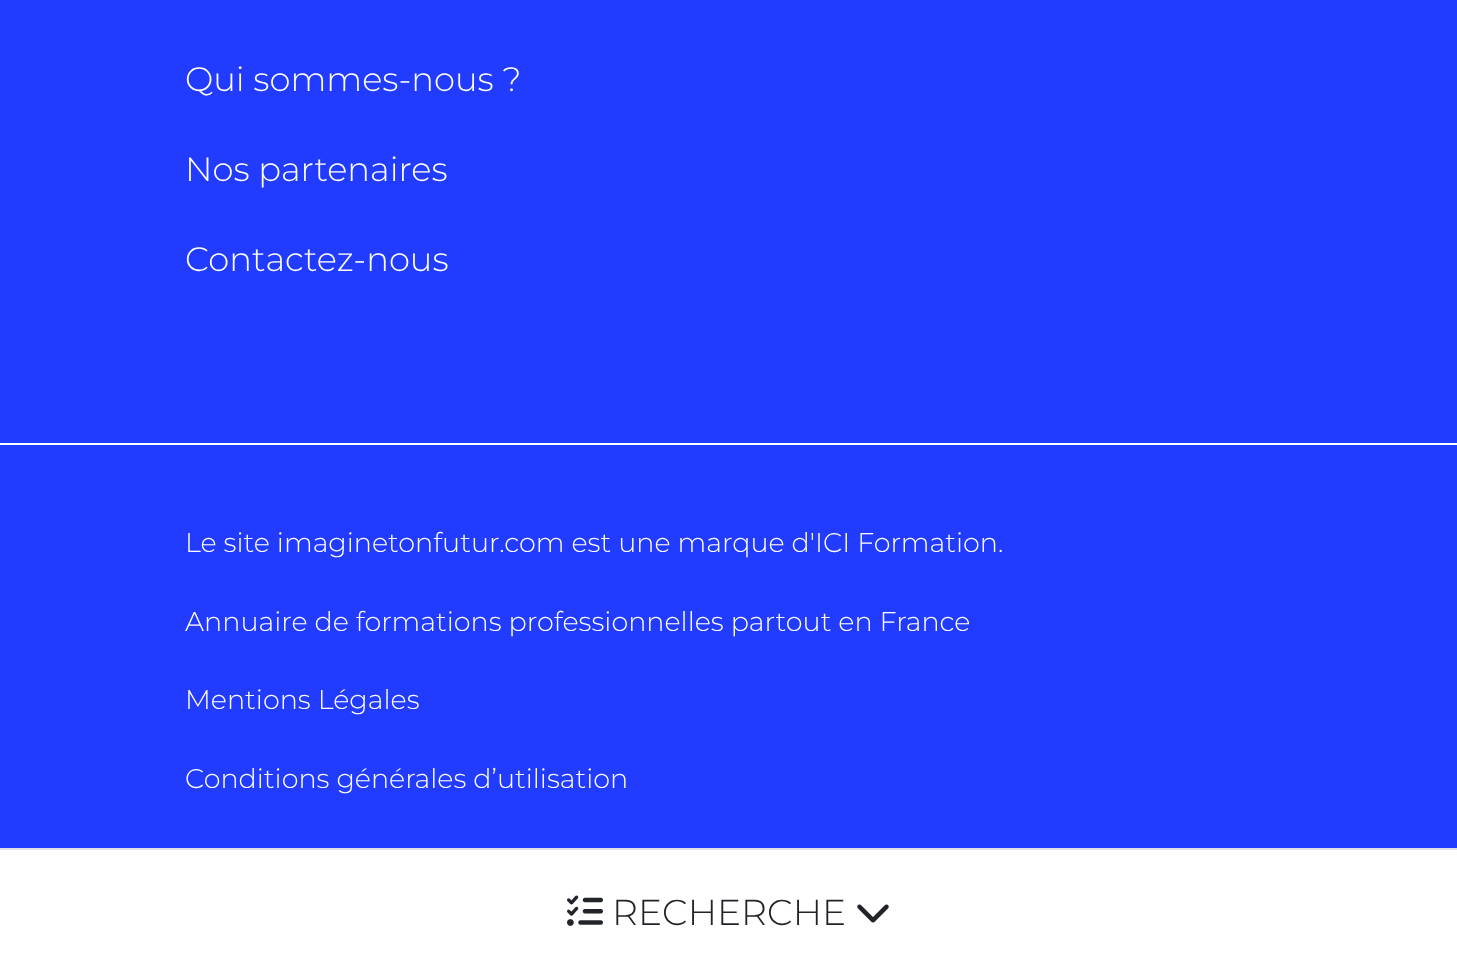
<!DOCTYPE html>
<meta charset="utf-8">
<style>body { margin: 0 } canvas { display: block }</style>
<canvas id="canvas" width="1457" height="976"></canvas>
<img id="img1" src="images/1.png" hidden>
<img id="img2" src="images/2.png" hidden>
<script>
window.onload = function () {
    const canvas = document.getElementById('canvas');
    const context = canvas.getContext('2d');
    context.miterLimit = 4;
    context.fontKerning = 'normal';

    context.fillStyle = 'rgb(33, 59, 255)';
    context.fillRect(0, 0, 1457, 976);
    context.fillStyle = 'rgb(255, 255, 255)';
    context.fillRect(0, 443, 1457, 2);
    context.fillRect(0, 850, 1457, 126);
    context.fillStyle = 'rgb(222, 226, 230)';
    context.fillRect(0, 848, 1457, 2);
    context.drawImage(document.getElementById('img1'), 567, 895, 36, 31);
    context.drawImage(document.getElementById('img2'), 857, 904, 32, 19);
    context.font = '300 33.75px Montserrat';
    context.fillStyle = 'rgb(255, 255, 255)';
    context.fillText('Qui sommes-nous ?', 185, 91);
    context.fillText('Nos partenaires', 185, 181);
    context.fillText('Contactez-nous', 185, 271);
    context.font = '300 27px Montserrat';
    context.fillText('Le site imaginetonfutur.com est une marque d\'ICI Formation.', 185, 552);
    context.fillText('Annuaire de formations professionnelles partout en France', 185, 631);
    context.fillText('Mentions Légales', 185, 709);
    context.fillText('Conditions générales d’utilisation', 185, 788);
    context.font = '300 36px Montserrat';
    context.fillStyle = 'rgb(33, 37, 41)';
    context.fillText('RECHERCHE', 612, 925);
};
</script>
